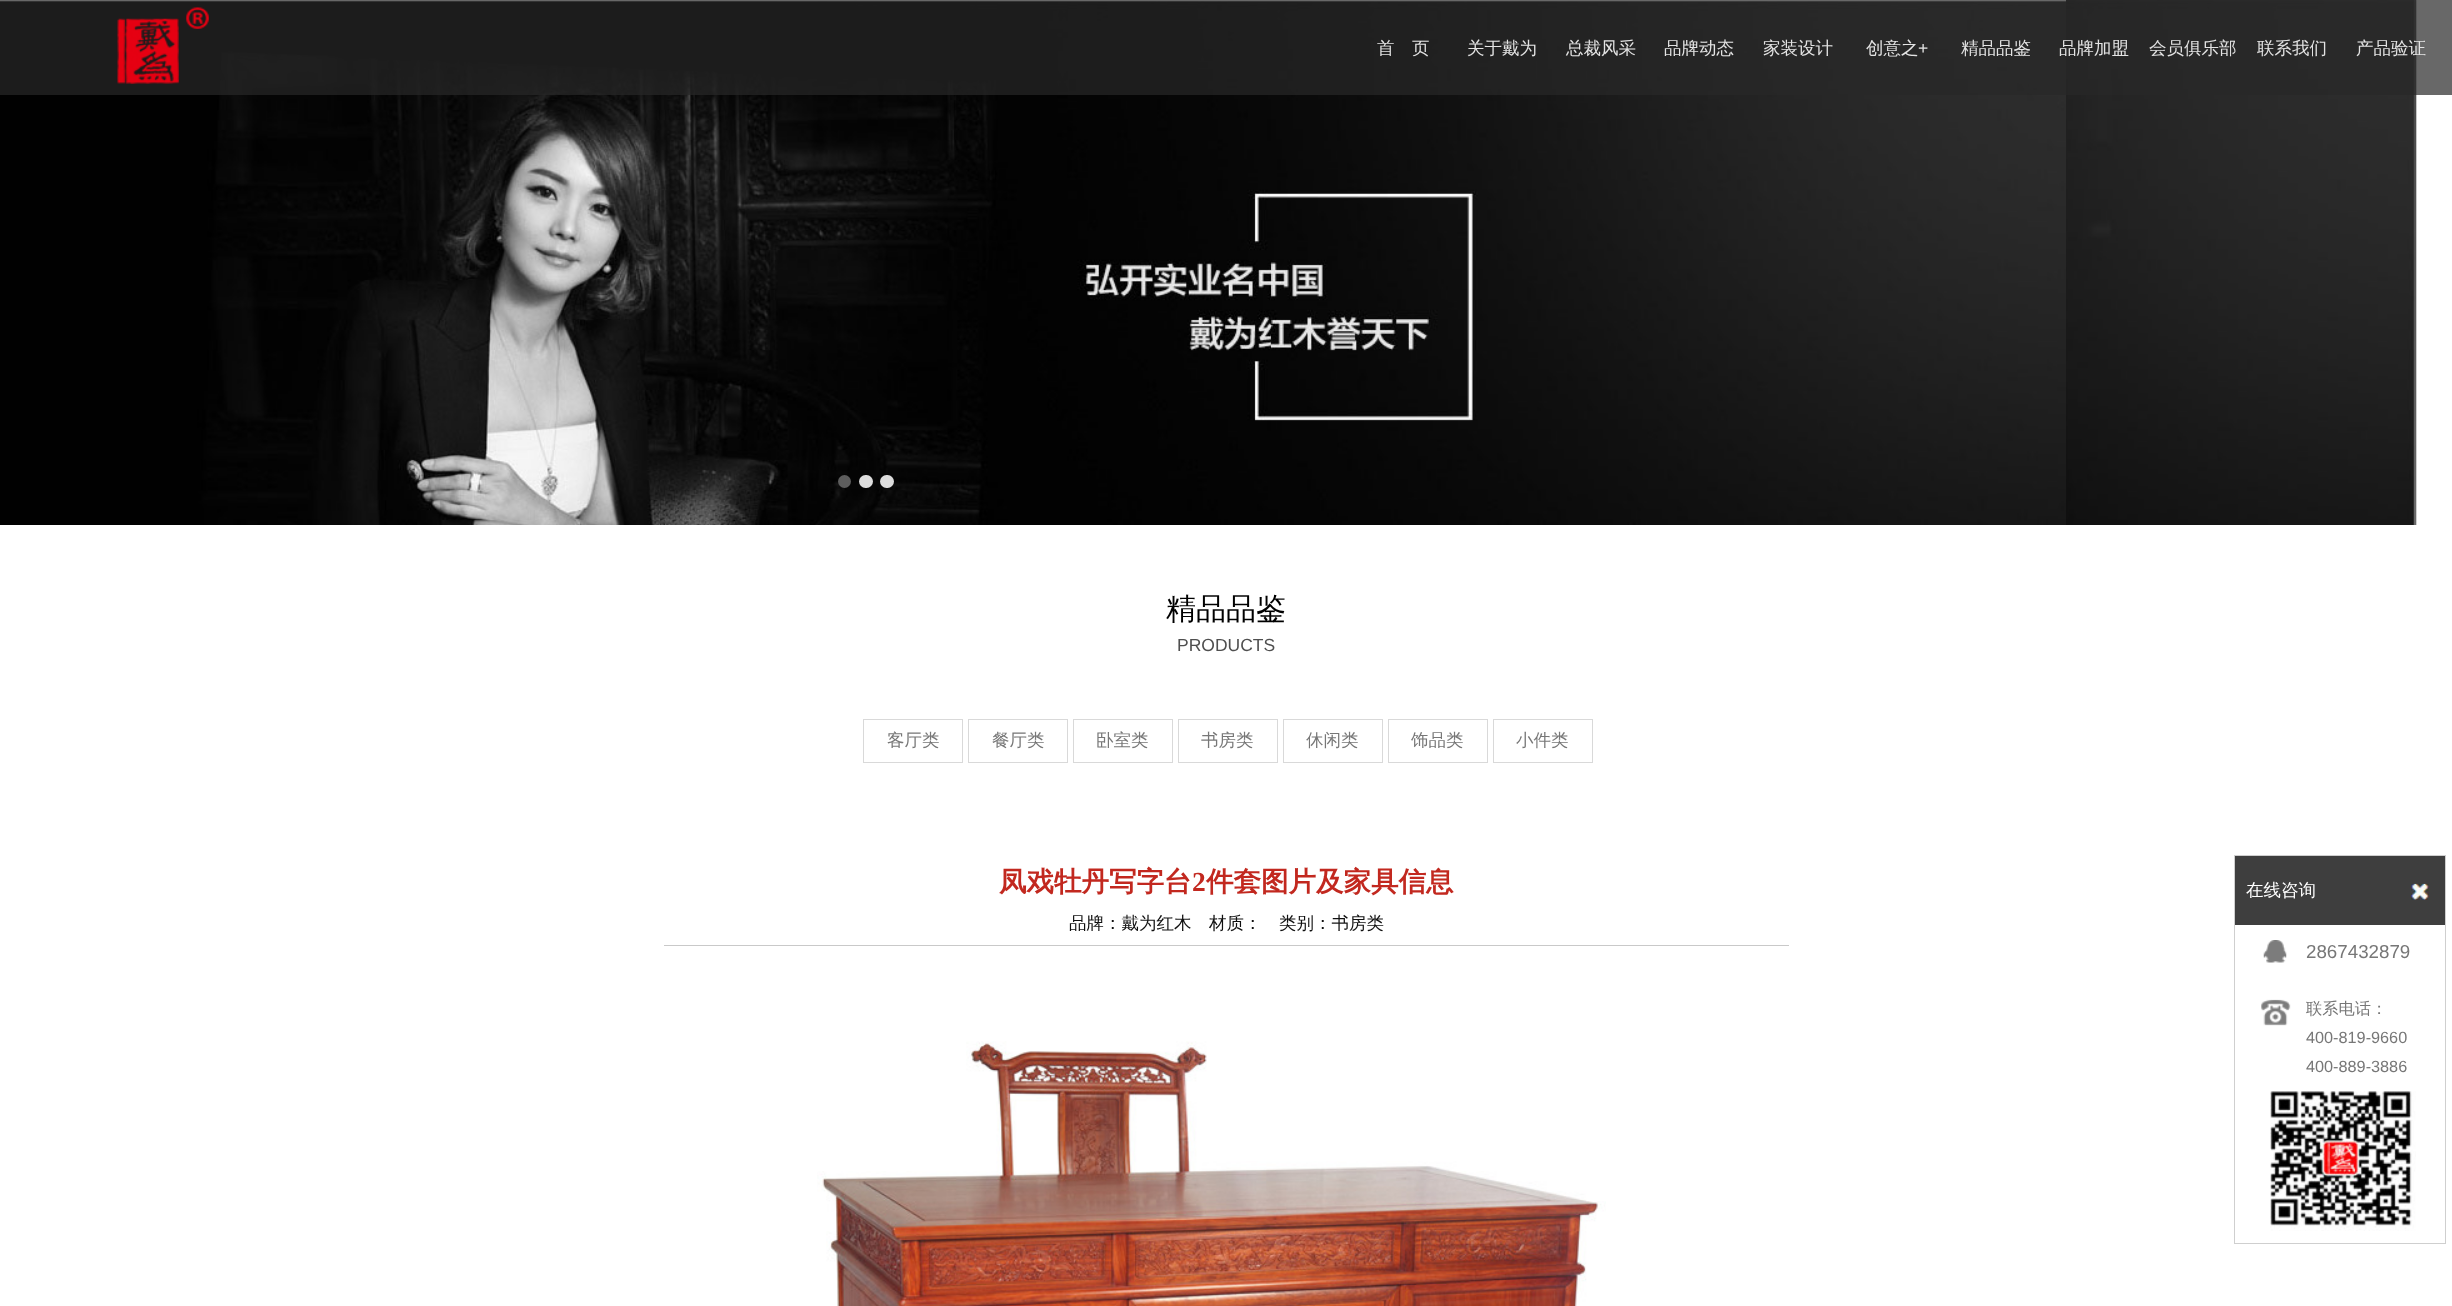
<!DOCTYPE html>
<meta charset="utf-8">
<style>body { margin: 0 } canvas { display: block }</style>
<canvas id="canvas" width="2452" height="1306"></canvas>
<img id="img1" src="images/1.png" hidden>
<img id="img2" src="images/2.png" hidden>
<img id="img3" src="images/3.png" hidden>
<img id="img4" src="images/4.png" hidden>
<img id="img5" src="images/5.png" hidden>
<img id="img6" src="images/6.png" hidden>
<img id="img7" src="images/7.png" hidden>
<img id="img8" src="images/8.png" hidden>
<script>
window.onload = function () {
    const canvas = document.getElementById('canvas');
    const context = canvas.getContext('2d');
    context.miterLimit = 4;
    context.fontKerning = 'normal';

    context.fillStyle = 'rgb(255, 255, 255)';
    context.fillRect(0, 0, 2452, 1306);
    context.drawImage(document.getElementById('img1'), 2066, 0, 351, 525);
    context.drawImage(document.getElementById('img2'), 0, 0, 2066, 525);
    context.fillStyle = 'rgb(93, 93, 93)';
    context.beginPath();
    context.arc(844.5, 481.5, 6.5, 0, 2 * Math.PI);
    context.fill();
    context.fillStyle = 'rgb(221, 221, 221)';
    context.beginPath();
    context.roundRect(859, 475, 14, 13, 6.5);
    context.fill();
    context.beginPath();
    context.roundRect(880, 475, 14, 13, 6.5);
    context.fill();
    context.fillStyle = 'rgba(40, 40, 40, 0.7)';
    context.fillRect(0, 0, 2452, 95);
    context.drawImage(document.getElementById('img3'), 117, 7, 92, 77);
    context.strokeStyle = 'rgb(217, 217, 217)';
    context.strokeRect(863.5, 719.5, 99, 43);
    context.strokeRect(968.5, 719.5, 99, 43);
    context.strokeRect(1073.5, 719.5, 99, 43);
    context.strokeRect(1178.5, 719.5, 99, 43);
    context.strokeRect(1283.5, 719.5, 99, 43);
    context.strokeRect(1388.5, 719.5, 99, 43);
    context.strokeRect(1493.5, 719.5, 99, 43);
    context.fillStyle = 'rgb(201, 201, 201)';
    context.fillRect(664, 945, 1125, 1);
    context.drawImage(document.getElementById('img4'), 817, 1041, 789, 265);
    context.strokeStyle = 'rgb(207, 207, 207)';
    context.strokeRect(2234.5, 855.5, 211, 388);
    context.fillStyle = 'rgb(62, 62, 62)';
    context.fillRect(2235, 856, 210, 69);
    context.drawImage(document.getElementById('img5'), 2411, 883, 18, 17);
    context.drawImage(document.getElementById('img6'), 2263, 940, 24, 23);
    context.drawImage(document.getElementById('img7'), 2261, 999, 30, 27);
    context.drawImage(document.getElementById('img8'), 2270, 1091, 146, 140);
    context.font = '500 17.5px WenQuanYi Zen Hei';
    context.fillStyle = 'rgb(228, 228, 228)';
    context.fillText('首　页', 1377, 54);
    context.fillText('关于戴为', 1467, 54);
    context.fillText('总裁风采', 1566, 54);
    context.fillText('品牌动态', 1664, 54);
    context.fillText('家装设计', 1763, 54);
    context.fillText('创意之', 1866, 54);
    context.font = '17.5px Liberation Sans';
    context.fillText('+', 1918, 54);
    context.font = '500 17.5px WenQuanYi Zen Hei';
    context.fillText('精品品鉴', 1961, 54);
    context.fillText('品牌加盟', 2059, 54);
    context.fillText('会员俱乐部', 2149, 54);
    context.fillText('联系我们', 2257, 54);
    context.fillText('产品验证', 2356, 54);
    context.font = '500 30px WenQuanYi Zen Hei';
    context.fillStyle = 'rgb(0, 0, 0)';
    context.fillText('精品品鉴', 1166, 619);
    context.font = '17.5px Liberation Sans';
    context.fillStyle = 'rgb(79, 79, 79)';
    context.fillText('PRODUCTS', 1177, 651);
    context.font = '500 17.5px WenQuanYi Zen Hei';
    context.fillStyle = 'rgb(119, 119, 119)';
    context.fillText('客厅类', 887, 746);
    context.fillText('餐厅类', 992, 746);
    context.fillText('卧室类', 1096, 746);
    context.fillText('书房类', 1201, 746);
    context.fillText('休闲类', 1306, 746);
    context.fillText('饰品类', 1411, 746);
    context.fillText('小件类', 1516, 746);
    context.font = 'bold 27.5px WenQuanYi Zen Hei';
    context.fillStyle = 'rgb(194, 40, 31)';
    context.fillText('凤戏牡丹写字台', 999, 891);
    context.font = 'bold 27.5px Liberation Serif';
    context.fillText('2', 1192, 891);
    context.font = 'bold 27.5px WenQuanYi Zen Hei';
    context.fillText('件套图片及家具信息', 1206, 891);
    context.font = '500 17.5px WenQuanYi Zen Hei';
    context.fillStyle = 'rgb(16, 16, 16)';
    context.fillText('品牌：戴为红木　材质：　类别：书房类', 1069, 929);
    context.fillStyle = 'rgb(255, 255, 255)';
    context.fillText('在线咨询', 2246, 896);
    context.font = '18.75px Liberation Sans';
    context.fillStyle = 'rgb(119, 119, 119)';
    context.fillText('2867432879', 2306, 958);
    context.font = '500 16.25px WenQuanYi Zen Hei';
    context.fillText('联系电话：', 2306, 1014);
    context.font = '16.25px Liberation Sans';
    context.fillText('400-819-9660', 2306, 1043);
    context.fillText('400-889-3886', 2306, 1072);
};
</script>
